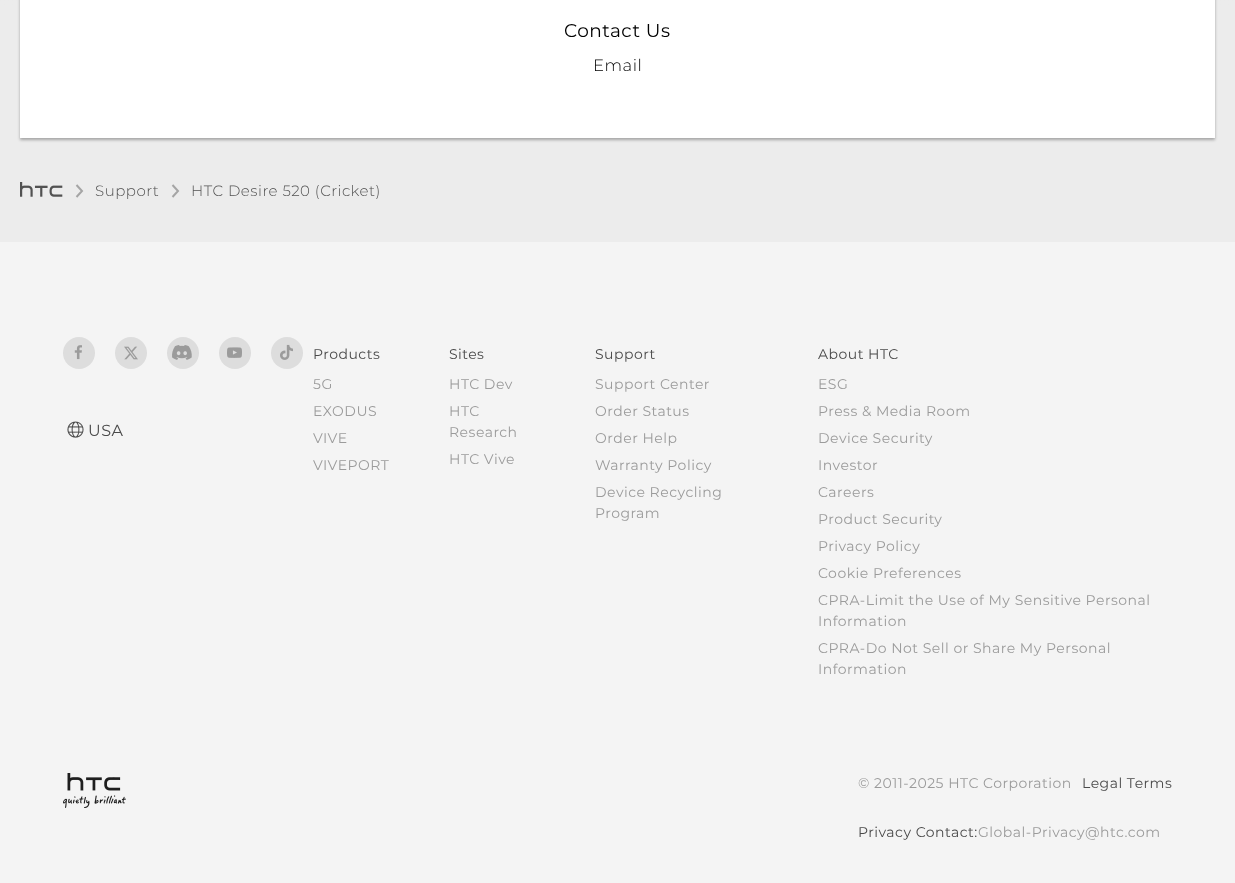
<!DOCTYPE html>
<meta charset="utf-8">
<style>body { margin: 0 } canvas { display: block }</style>
<canvas id="canvas" width="1235" height="883"></canvas>
<img id="img1" src="images/1.png" hidden>
<img id="img2" src="images/2.png" hidden>
<img id="img3" src="images/3.png" hidden>
<img id="img4" src="images/4.png" hidden>
<img id="img5" src="images/5.png" hidden>
<img id="img6" src="images/6.png" hidden>
<img id="img7" src="images/7.png" hidden>
<img id="img8" src="images/8.png" hidden>
<script>
window.onload = function () {
    const canvas = document.getElementById('canvas');
    const context = canvas.getContext('2d');
    context.miterLimit = 4;
    context.fontKerning = 'normal';
    let gradient;

    context.fillStyle = 'rgb(244, 244, 244)';
    context.fillRect(0, 0, 1235, 883);
    gradient = context.createLinearGradient(617, -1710, 618, 242);
    gradient.addColorStop(0, 'rgb(218, 218, 218)');
    gradient.addColorStop(0.88, 'rgb(236, 236, 236)');
    gradient.addColorStop(1, 'rgb(236, 236, 236)');
    context.fillStyle = gradient;
    context.fillRect(0, 0, 1235, 242);
    context.fillStyle = 'rgba(0, 0, 0, 0.3)';
    context.filter = 'blur(1.5px)';
    context.beginPath();
    context.rect(20, -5, 1195, 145);
    context.fill();
    context.filter = 'none';
    context.fillStyle = 'rgb(255, 255, 255)';
    context.fillRect(20, 0, 1195, 138);
    context.drawImage(document.getElementById('img1'), 20, 182, 43, 15);
    context.beginPath();
    context.moveTo(76.5, 185);
    context.lineTo(82, 191);
    context.lineTo(76.5, 197);
    context.strokeStyle = 'rgb(165, 165, 165)';
    context.lineWidth = 2;
    context.stroke();
    context.beginPath();
    context.moveTo(172.5, 185);
    context.lineTo(178, 191);
    context.lineTo(172.5, 197);
    context.stroke();
    context.fillStyle = 'rgb(221, 221, 221)';
    context.beginPath();
    context.arc(79, 353, 16, 0, 2 * Math.PI);
    context.fill();
    context.drawImage(document.getElementById('img2'), 74, 345, 8, 15);
    context.beginPath();
    context.arc(131, 353, 16, 0, 2 * Math.PI);
    context.fill();
    context.drawImage(document.getElementById('img3'), 124, 346, 14, 14);
    context.beginPath();
    context.arc(183, 353, 16, 0, 2 * Math.PI);
    context.fill();
    context.drawImage(document.getElementById('img4'), 172, 345, 20, 15);
    context.beginPath();
    context.arc(235, 353, 16, 0, 2 * Math.PI);
    context.fill();
    context.drawImage(document.getElementById('img5'), 227, 347, 15, 11);
    context.beginPath();
    context.arc(287, 353, 16, 0, 2 * Math.PI);
    context.fill();
    context.drawImage(document.getElementById('img6'), 280, 344, 13, 16);
    context.drawImage(document.getElementById('img7'), 67, 421, 17, 17);
    context.drawImage(document.getElementById('img8'), 63, 773, 63, 35);
    context.letterSpacing = '0.5px';
    context.font = '18.5px Montserrat';
    context.fillStyle = 'rgb(0, 0, 0)';
    context.fillText('Contact Us', 564, 37);
    context.font = '300 16.5px Montserrat';
    context.fillText('Email', 593, 71);
    context.font = '300 15px Montserrat';
    context.fillStyle = 'rgb(82, 82, 82)';
    context.fillText('Support', 95, 196);
    context.fillText('HTC Desire 520 (Cricket)', 191, 196);
    context.font = '16px Montserrat';
    context.fillStyle = 'rgb(74, 74, 74)';
    context.fillText('USA', 88, 436);
    context.font = '14px Montserrat';
    context.fillText('Products', 313, 359);
    context.fillStyle = 'rgb(155, 155, 155)';
    context.fillText('5G', 313, 389);
    context.fillText('EXODUS', 313, 416);
    context.fillText('VIVE', 313, 443);
    context.fillText('VIVEPORT', 313, 470);
    context.fillStyle = 'rgb(74, 74, 74)';
    context.fillText('Sites', 449, 359);
    context.fillStyle = 'rgb(155, 155, 155)';
    context.fillText('HTC Dev', 449, 389);
    context.fillText('HTC', 449, 416);
    context.fillText('Research', 449, 437);
    context.fillText('HTC Vive', 449, 464);
    context.fillStyle = 'rgb(74, 74, 74)';
    context.fillText('Support', 595, 359);
    context.fillStyle = 'rgb(155, 155, 155)';
    context.fillText('Support Center', 595, 389);
    context.fillText('Order Status', 595, 416);
    context.fillText('Order Help', 595, 443);
    context.fillText('Warranty Policy', 595, 470);
    context.fillText('Device Recycling', 595, 497);
    context.fillText('Program', 595, 518);
    context.fillStyle = 'rgb(74, 74, 74)';
    context.fillText('About HTC', 818, 359);
    context.fillStyle = 'rgb(155, 155, 155)';
    context.fillText('ESG', 818, 389);
    context.fillText('Press & Media Room', 818, 416);
    context.fillText('Device Security', 818, 443);
    context.fillText('Investor', 818, 470);
    context.fillText('Careers', 818, 497);
    context.fillText('Product Security', 818, 524);
    context.fillText('Privacy Policy', 818, 551);
    context.fillText('Cookie Preferences', 818, 578);
    context.fillText('CPRA-Limit the Use of My Sensitive Personal', 818, 605);
    context.fillText('Information', 818, 626);
    context.fillText('CPRA-Do Not Sell or Share My Personal', 818, 653);
    context.fillText('Information', 818, 674);
    context.fillText('© 2011-2025 HTC Corporation', 858, 788);
    context.fillStyle = 'rgb(74, 74, 74)';
    context.fillText('Legal Terms', 1082, 788);
    context.fillText('Privacy Contact:', 858, 837);
    context.fillStyle = 'rgb(155, 155, 155)';
    context.fillText('Global-Privacy@htc.com', 978, 837);
};
</script>
